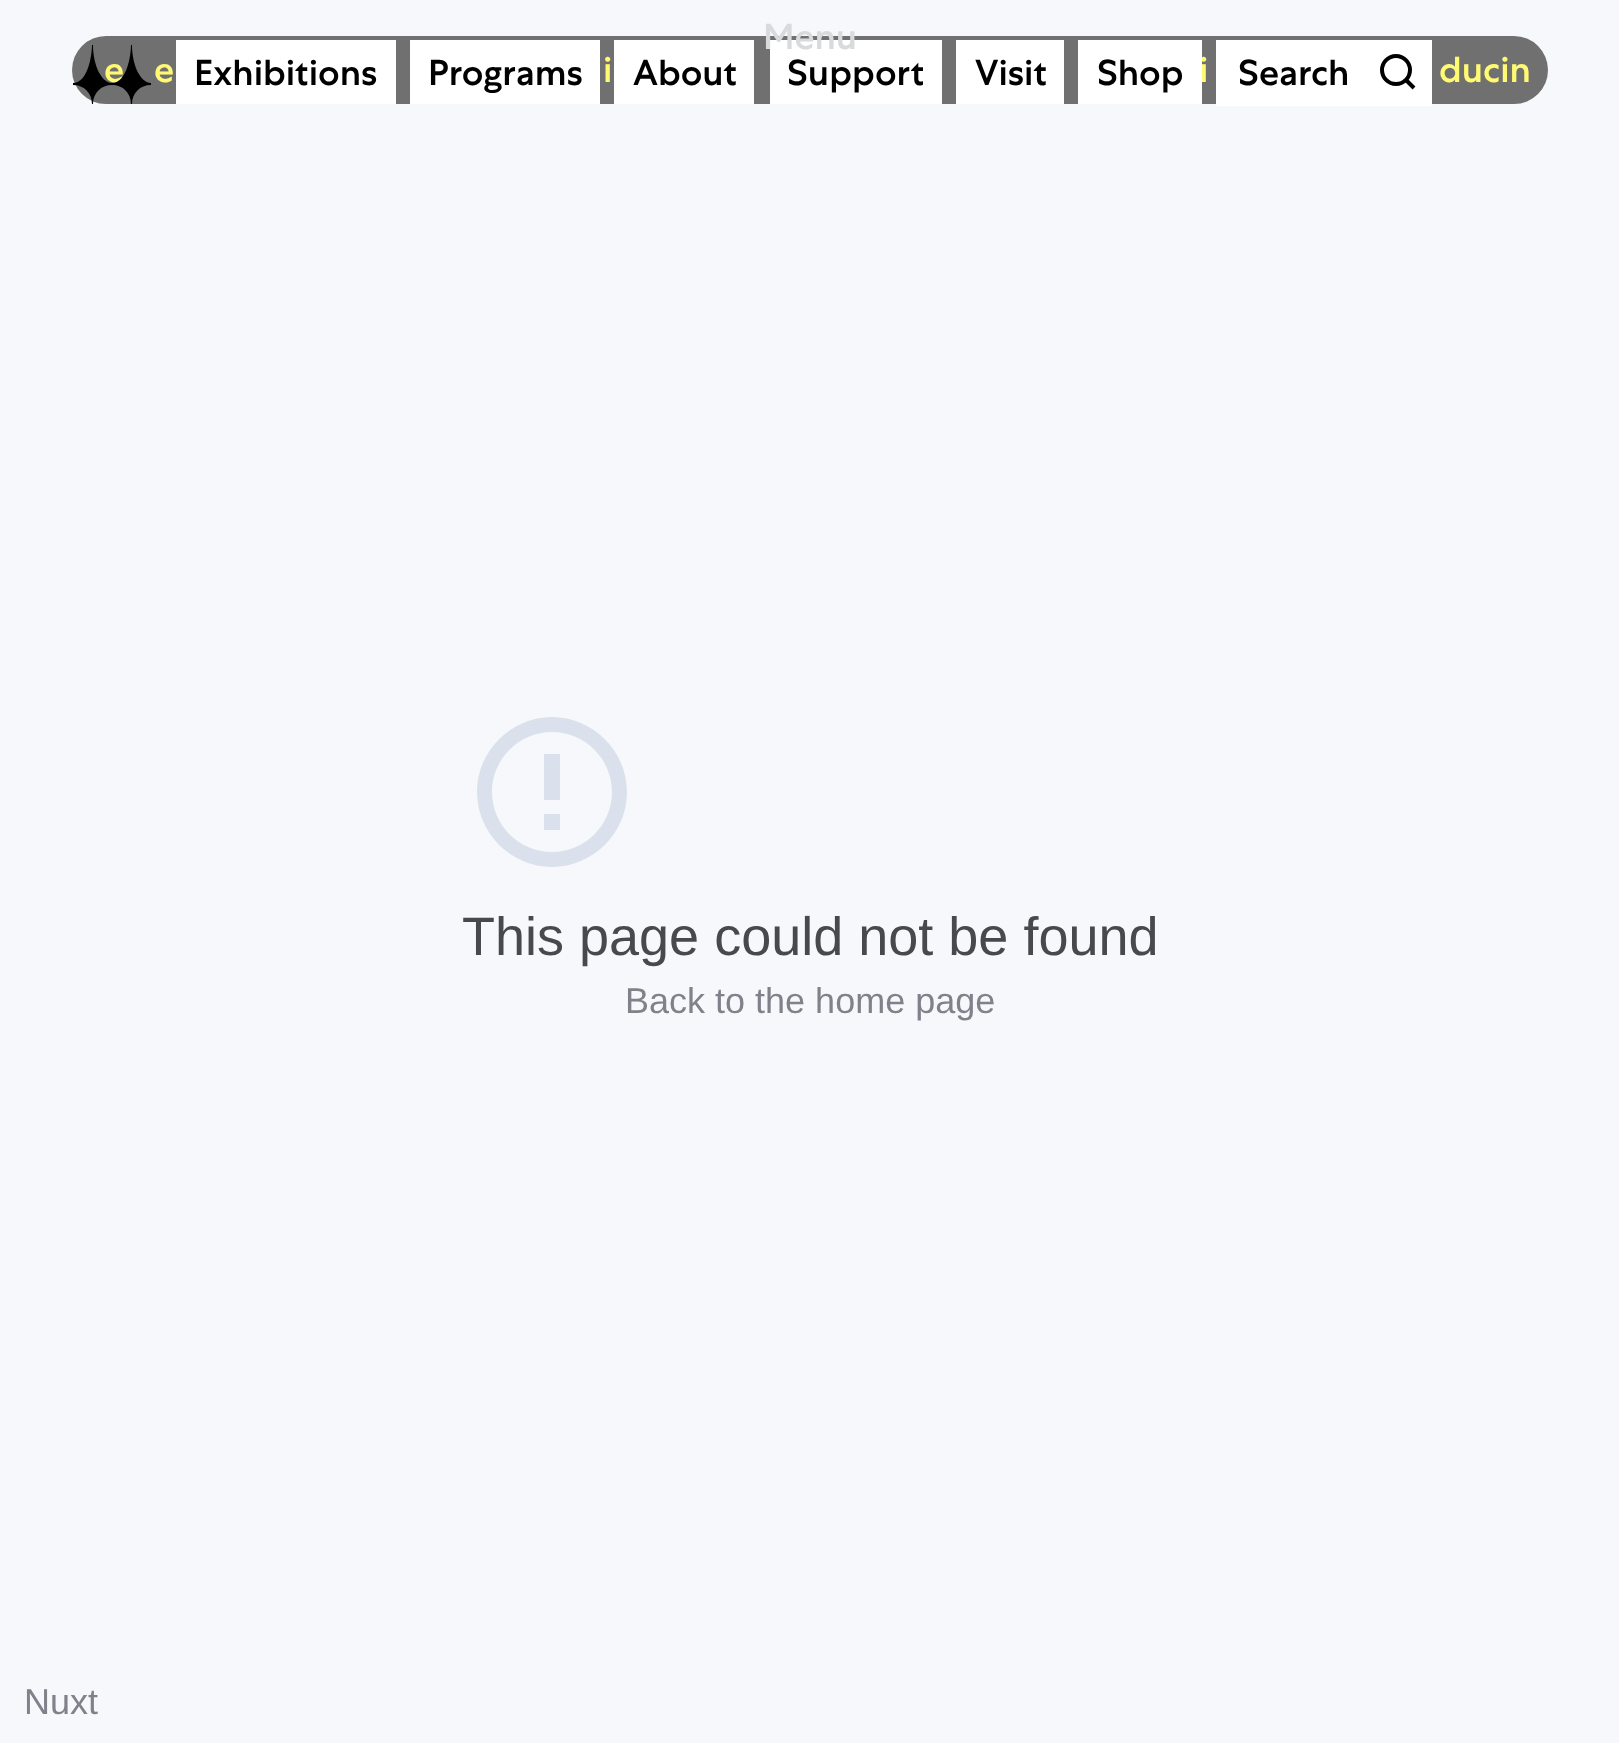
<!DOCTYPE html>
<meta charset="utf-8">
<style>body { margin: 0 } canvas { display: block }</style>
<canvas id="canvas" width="1619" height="1743"></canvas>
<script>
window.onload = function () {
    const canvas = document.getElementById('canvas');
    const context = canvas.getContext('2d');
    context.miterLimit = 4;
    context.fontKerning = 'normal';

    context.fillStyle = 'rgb(247, 248, 251)';
    context.fillRect(0, 0, 1619, 1743);
    context.fillStyle = 'rgb(112, 112, 112)';
    context.beginPath();
    context.roundRect(72, 36, 1476, 68, 34);
    context.fill();
    context.fillStyle = 'rgb(255, 255, 255)';
    context.fillRect(176, 40, 220, 64);
    context.fillRect(410, 40, 190, 64);
    context.fillRect(614, 40, 140, 64);
    context.fillRect(770, 40, 172, 64);
    context.fillRect(956, 40, 108, 64);
    context.fillRect(1216, 40, 216, 66);
    context.beginPath();
    context.arc(1396, 70, 14, 0, 2 * Math.PI);
    context.strokeStyle = 'rgb(0, 0, 0)';
    context.lineWidth = 4;
    context.stroke();
    context.beginPath();
    context.moveTo(1406, 80);
    context.lineTo(1414, 88);
    context.closePath();
    context.stroke();
    context.fillStyle = 'rgb(219, 225, 236)';
    context.beginPath();
    context.moveTo(544, 814);
    context.lineTo(560, 814);
    context.lineTo(560, 830);
    context.lineTo(544, 830);
    context.closePath();
    context.moveTo(544, 754);
    context.lineTo(560, 754);
    context.lineTo(560, 800);
    context.lineTo(544, 800);
    context.closePath();
    context.moveTo(552, 717);
    context.bezierCurveTo(511, 717, 477, 751, 477, 792);
    context.bezierCurveTo(477, 833, 511, 867, 552, 867);
    context.bezierCurveTo(593, 867, 627, 833, 627, 792);
    context.bezierCurveTo(627, 751, 593, 717, 552, 717);
    context.closePath();
    context.moveTo(552, 852);
    context.bezierCurveTo(519, 852, 492, 825, 492, 792);
    context.bezierCurveTo(492, 759, 519, 732, 552, 732);
    context.bezierCurveTo(585, 732, 612, 759, 612, 792);
    context.bezierCurveTo(612, 825, 585, 852, 552, 852);
    context.closePath();
    context.fill();
    context.font = '500 36px "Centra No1"';
    context.fillStyle = 'rgb(217, 218, 219)';
    context.fillText('Menu', 763, 49);
    context.fillStyle = 'rgb(0, 0, 0)';
    context.fillText('Exhibitions', 194, 85);
    context.fillText('Programs', 428, 85);
    context.fillText('About', 633, 85);
    context.fillText('Support', 787, 85);
    context.fillText('Visit', 975, 85);
    context.fillText('Search', 1238, 85);
    context.fillStyle = 'rgb(255, 250, 114)';
    context.fillText('e', 104, 82);
    context.fillStyle = 'rgb(0, 0, 0)';
    context.beginPath();
    context.moveTo(93, 45);
    context.lineTo(92, 45);
    context.bezierCurveTo(92, 55, 88, 83, 73, 83);
    context.lineTo(73, 85);
    context.bezierCurveTo(84, 85, 92, 93, 92, 104);
    context.lineTo(93, 104);
    context.bezierCurveTo(93, 93, 101, 85, 112, 85);
    context.lineTo(112, 83);
    context.bezierCurveTo(102, 83, 93, 66, 93, 45);
    context.closePath();
    context.fill();
    context.beginPath();
    context.moveTo(132, 45);
    context.lineTo(131, 45);
    context.bezierCurveTo(131, 55, 127, 83, 112, 83);
    context.lineTo(112, 85);
    context.bezierCurveTo(123, 85, 131, 93, 131, 104);
    context.lineTo(132, 104);
    context.bezierCurveTo(132, 93, 140, 85, 151, 85);
    context.lineTo(151, 83);
    context.bezierCurveTo(141, 83, 132, 66, 132, 45);
    context.closePath();
    context.fill();
    context.fillStyle = 'rgb(255, 250, 114)';
    context.fillText('e', 154, 82);
    context.fillText('i', 603, 82);
    context.fillText('i', 1199, 82);
    context.fillStyle = 'rgb(255, 255, 255)';
    context.fillRect(1078, 40, 124, 64);
    context.fillStyle = 'rgb(0, 0, 0)';
    context.fillText('Shop', 1097, 85);
    context.fillStyle = 'rgb(255, 250, 114)';
    context.fillText('ducin', 1439, 82);
    context.font = '54px Liberation Sans';
    context.fillStyle = 'rgb(71, 73, 78)';
    context.fillText('This page could not be found', 462, 955);
    context.font = '36px Liberation Sans';
    context.fillStyle = 'rgb(127, 130, 139)';
    context.fillText('Back to the home page', 625, 1013);
    context.fillText('Nuxt', 24, 1714);
};
</script>
